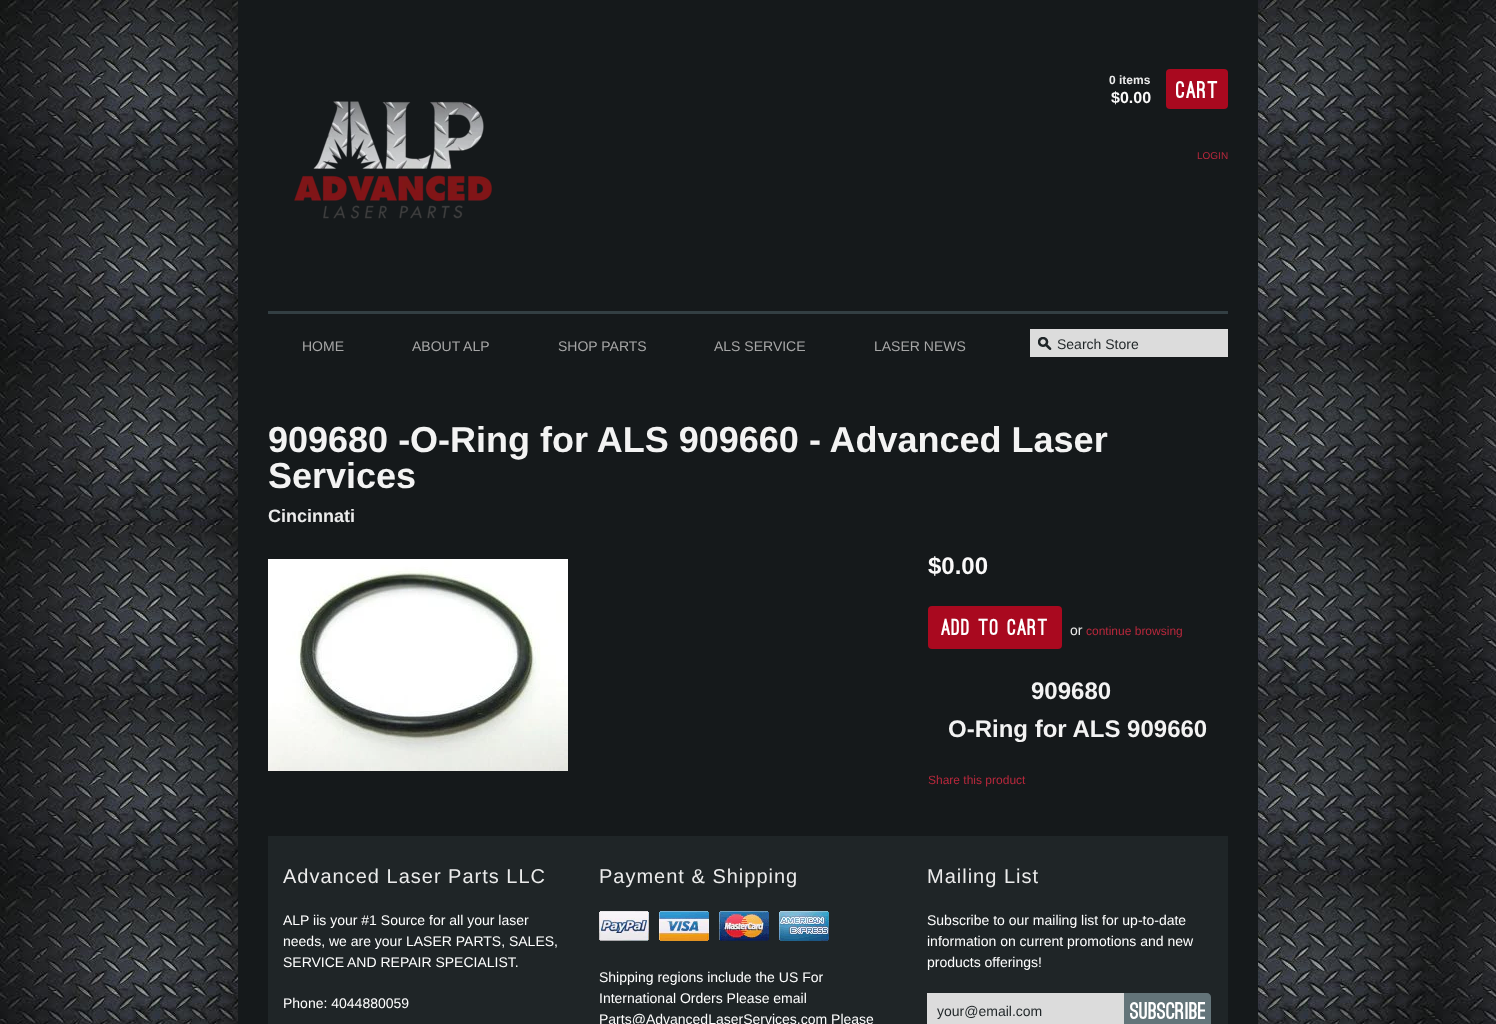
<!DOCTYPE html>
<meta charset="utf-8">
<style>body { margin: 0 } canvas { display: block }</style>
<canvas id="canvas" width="1496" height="1024"></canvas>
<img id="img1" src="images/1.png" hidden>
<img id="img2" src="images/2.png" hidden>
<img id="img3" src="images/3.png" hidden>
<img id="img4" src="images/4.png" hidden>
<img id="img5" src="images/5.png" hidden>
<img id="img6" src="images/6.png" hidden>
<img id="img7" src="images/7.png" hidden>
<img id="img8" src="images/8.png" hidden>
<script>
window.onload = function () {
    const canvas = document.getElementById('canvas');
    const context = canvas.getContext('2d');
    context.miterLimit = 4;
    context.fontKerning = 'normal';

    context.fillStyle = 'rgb(255, 255, 255)';
    context.fillRect(0, 0, 1496, 1024);
    context.drawImage(document.getElementById('img1'), 0, 0, 1496, 1024);
    context.fillStyle = 'rgb(21, 25, 27)';
    context.fillRect(238, 0, 1020, 1024);
    context.drawImage(document.getElementById('img2'), 294, 101, 198, 118);
    context.fillStyle = 'rgb(169, 9, 31)';
    context.beginPath();
    context.roundRect(1166, 69, 62, 40, 4);
    context.fill();
    context.fillStyle = 'rgb(51, 63, 67)';
    context.fillRect(268, 311, 960, 3);
    context.fillStyle = 'rgb(220, 220, 220)';
    context.fillRect(1030, 329, 198, 28);
    context.drawImage(document.getElementById('img3'), 1038, 337, 14, 13);
    context.drawImage(document.getElementById('img4'), 268, 559, 300, 212);
    context.fillStyle = 'rgb(169, 9, 31)';
    context.beginPath();
    context.roundRect(928, 606, 134, 43, 4);
    context.fill();
    context.fillStyle = 'rgb(31, 37, 39)';
    context.fillRect(268, 836, 960, 188);
    context.drawImage(document.getElementById('img5'), 599, 911, 50, 30);
    context.drawImage(document.getElementById('img6'), 659, 911, 50, 30);
    context.drawImage(document.getElementById('img7'), 719, 911, 50, 30);
    context.drawImage(document.getElementById('img8'), 779, 911, 50, 30);
    context.fillStyle = 'rgb(220, 220, 220)';
    context.fillRect(927, 993, 197, 31);
    context.fillStyle = 'rgb(99, 116, 121)';
    context.beginPath();
    context.moveTo(1124, 993);
    context.lineTo(1207, 993);
    context.bezierCurveTo(1209, 993, 1211, 995, 1211, 997);
    context.lineTo(1211, 1024);
    context.bezierCurveTo(1211, 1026, 1209, 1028, 1207, 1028);
    context.lineTo(1124, 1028);
    context.closePath();
    context.fill();
    context.font = 'bold 12px Liberation Sans';
    context.fillStyle = 'rgb(235, 235, 235)';
    context.fillText('0 items', 1109, 84);
    context.font = 'bold 16px Liberation Sans';
    context.fillStyle = 'rgb(250, 249, 249)';
    context.fillText('$0.00', 1111, 103);
    context.letterSpacing = '1px';
    context.font = '900 23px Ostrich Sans';
    context.fillStyle = 'rgb(255, 255, 255)';
    context.fillText('Cart', 1176, 98);
    context.letterSpacing = '0px';
    context.font = '10px Liberation Sans';
    context.fillStyle = 'rgb(184, 40, 60)';
    context.fillText('LOGIN', 1197, 159);
    context.font = '14px Liberation Sans';
    context.fillStyle = 'rgb(167, 167, 167)';
    context.fillText('HOME', 302, 351);
    context.fillText('ABOUT ALP', 412, 351);
    context.fillText('SHOP PARTS', 558, 351);
    context.fillText('ALS SERVICE', 714, 351);
    context.fillText('LASER NEWS', 874, 351);
    context.fillStyle = 'rgb(31, 37, 39)';
    context.fillText('Search Store', 1057, 349);
    context.font = 'bold 36px Liberation Sans';
    context.fillStyle = 'rgb(243, 243, 243)';
    context.fillText('909680 -O-Ring for ALS 909660 - Advanced Laser', 268, 452);
    context.fillText('Services', 268, 488);
    context.font = 'bold 18px Liberation Sans';
    context.fillStyle = 'rgb(235, 235, 235)';
    context.fillText('Cincinnati', 268, 522);
    context.font = 'bold 24px Liberation Sans';
    context.fillStyle = 'rgb(250, 249, 249)';
    context.fillText('$0.00', 928, 574);
    context.letterSpacing = '1px';
    context.font = '900 22px Ostrich Sans';
    context.fillStyle = 'rgb(255, 255, 255)';
    context.fillText('Add to Cart', 941, 635);
    context.letterSpacing = '0px';
    context.font = '14px Liberation Sans';
    context.fillStyle = 'rgb(235, 235, 235)';
    context.fillText('or', 1070, 635);
    context.font = '12px Liberation Sans';
    context.fillStyle = 'rgb(184, 40, 60)';
    context.fillText('continue browsing', 1086, 635);
    context.font = 'bold 24px Liberation Sans';
    context.fillStyle = 'rgb(243, 243, 243)';
    context.fillText('909680', 1031, 699);
    context.fillText('O-Ring for ALS 909660', 948, 737);
    context.font = '12px Liberation Sans';
    context.fillStyle = 'rgb(184, 40, 60)';
    context.fillText('Share this product', 928, 784);
    context.letterSpacing = '1px';
    context.font = '20px Liberation Sans';
    context.fillStyle = 'rgb(235, 235, 235)';
    context.fillText('Advanced Laser Parts LLC', 283, 883);
    context.letterSpacing = '0px';
    context.font = '14px Liberation Sans';
    context.fillStyle = 'rgb(255, 255, 255)';
    context.fillText('ALP iis your #1 Source for all your laser', 283, 925);
    context.fillText('needs, we are your LASER PARTS, SALES,', 283, 946);
    context.fillText('SERVICE', 283, 967);
    context.fillText('AND REPAIR SPECIALIST.', 347, 967);
    context.fillText('Phone: 4044880059', 283, 1008);
    context.letterSpacing = '1px';
    context.font = '20px Liberation Sans';
    context.fillStyle = 'rgb(235, 235, 235)';
    context.fillText('Payment & Shipping', 599, 883);
    context.letterSpacing = '0px';
    context.font = '14px Liberation Sans';
    context.fillStyle = 'rgb(255, 255, 255)';
    context.fillText('Shipping regions include the US For', 599, 982);
    context.fillText('International Orders Please email', 599, 1003);
    context.fillText('Parts@AdvancedLaserServices.com Please', 599, 1024);
    context.letterSpacing = '1px';
    context.font = '20px Liberation Sans';
    context.fillStyle = 'rgb(235, 235, 235)';
    context.fillText('Mailing List', 927, 883);
    context.letterSpacing = '0px';
    context.font = '14px Liberation Sans';
    context.fillStyle = 'rgb(255, 255, 255)';
    context.fillText('Subscribe to our mailing list for up-to-date', 927, 925);
    context.fillText('information on current promotions and new', 927, 946);
    context.fillText('products offerings!', 927, 967);
    context.fillStyle = 'rgb(31, 37, 39)';
    context.fillText('your@email.com', 937, 1016);
    context.font = '900 23px Ostrich Sans';
    context.fillStyle = 'rgb(255, 255, 255)';
    context.fillText('SUBSCRIBE', 1130, 1019);
};
</script>
